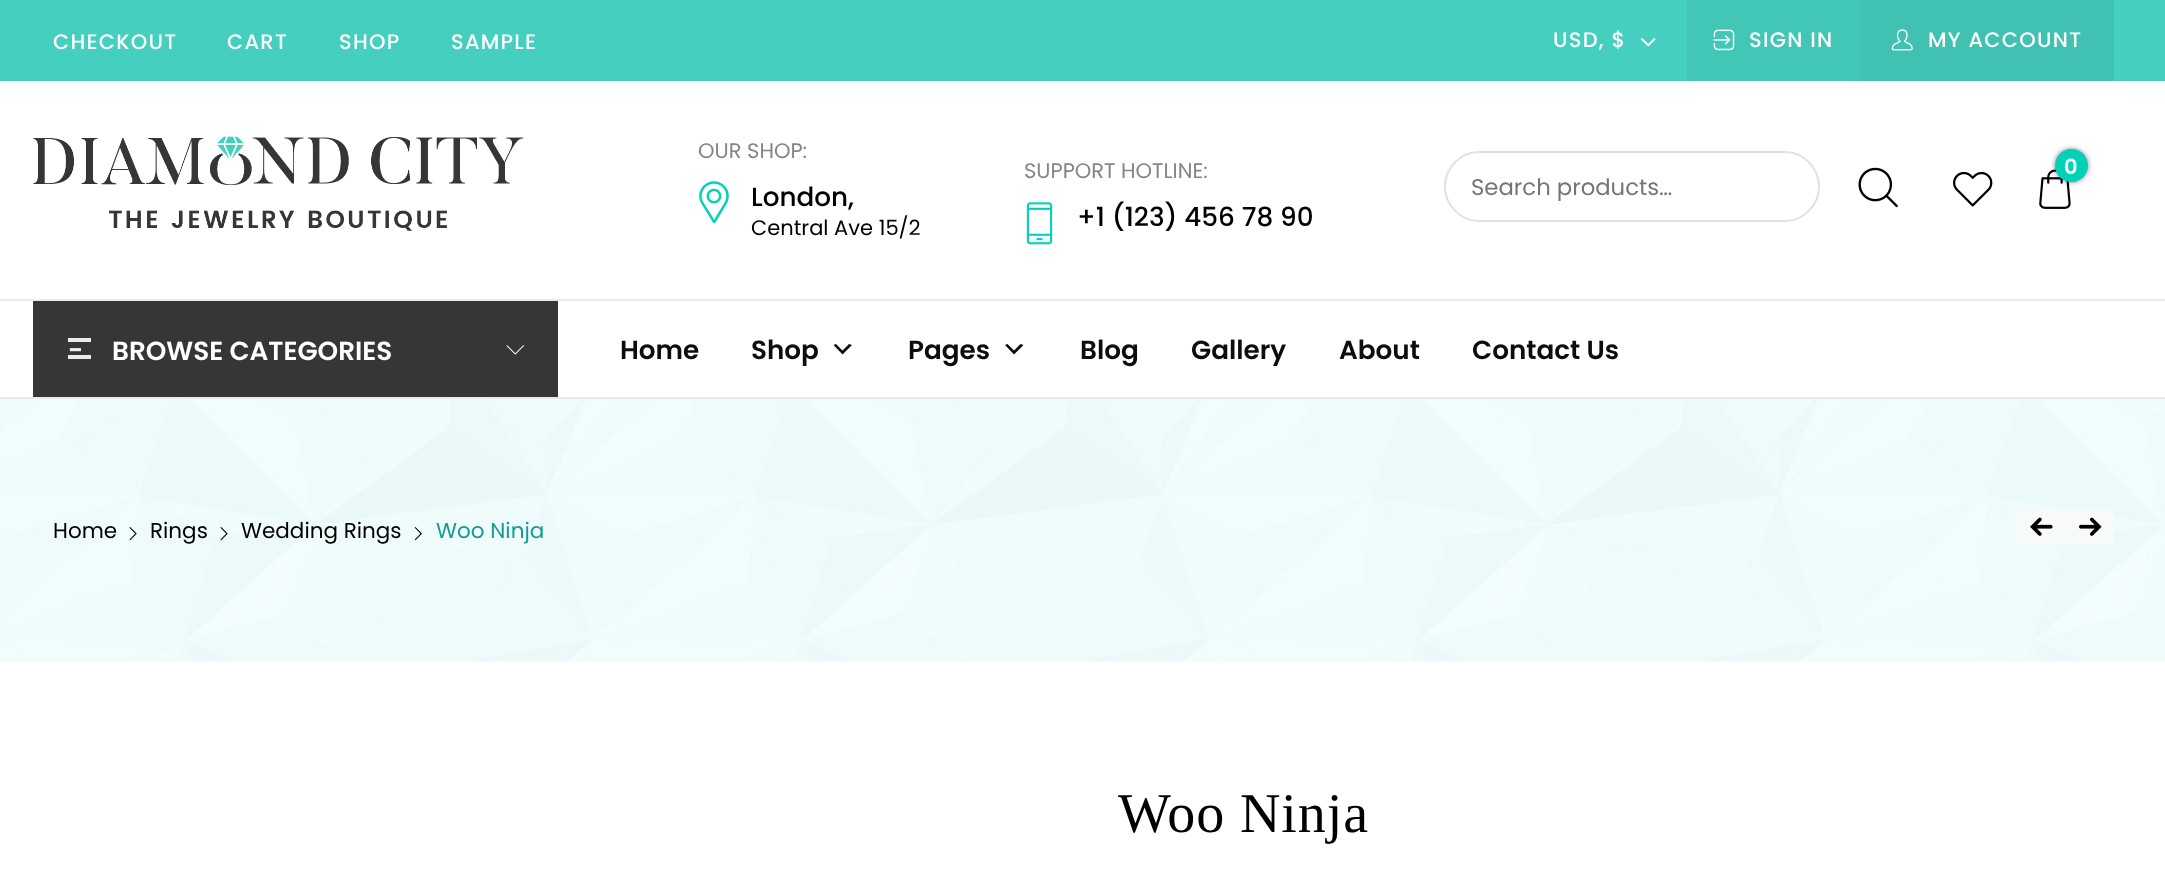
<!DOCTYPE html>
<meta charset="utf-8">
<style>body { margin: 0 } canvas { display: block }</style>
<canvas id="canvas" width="2165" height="894"></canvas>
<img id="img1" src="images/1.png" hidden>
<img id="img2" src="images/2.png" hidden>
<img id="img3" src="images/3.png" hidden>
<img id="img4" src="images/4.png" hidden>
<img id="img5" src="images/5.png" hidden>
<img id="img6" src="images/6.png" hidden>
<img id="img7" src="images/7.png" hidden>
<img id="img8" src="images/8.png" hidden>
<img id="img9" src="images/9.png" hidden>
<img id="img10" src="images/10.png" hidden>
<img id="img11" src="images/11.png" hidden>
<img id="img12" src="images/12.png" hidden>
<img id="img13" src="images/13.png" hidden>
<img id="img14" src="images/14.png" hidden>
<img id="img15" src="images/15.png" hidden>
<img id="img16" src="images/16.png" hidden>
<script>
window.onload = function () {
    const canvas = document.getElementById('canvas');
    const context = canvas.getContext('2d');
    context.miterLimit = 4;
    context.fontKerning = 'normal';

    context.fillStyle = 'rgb(255, 255, 255)';
    context.fillRect(0, 0, 2165, 894);
    context.fillStyle = 'rgb(69, 207, 190)';
    context.fillRect(0, 0, 2165, 81);
    context.drawImage(document.getElementById('img1'), 1640, 38, 16, 9);
    context.fillStyle = 'rgb(66, 199, 182)';
    context.fillRect(1687, 0, 173, 81);
    context.drawImage(document.getElementById('img2'), 1713, 29, 22, 22);
    context.fillStyle = 'rgb(64, 193, 177)';
    context.fillRect(1860, 0, 254, 81);
    context.drawImage(document.getElementById('img3'), 1891, 29, 22, 22);
    context.drawImage(document.getElementById('img4'), 33, 136, 491, 95);
    context.drawImage(document.getElementById('img5'), 699, 181, 30, 43);
    context.drawImage(document.getElementById('img6'), 1026, 202, 27, 43);
    context.beginPath();
    context.roundRect(1445, 152, 374, 69, 34.5);
    context.strokeStyle = 'rgb(225, 225, 225)';
    context.lineWidth = 2;
    context.stroke();
    context.drawImage(document.getElementById('img7'), 1858, 167, 40, 41);
    context.drawImage(document.getElementById('img8'), 1953, 171, 40, 36);
    context.drawImage(document.getElementById('img9'), 2039, 169, 32, 40);
    context.fillStyle = 'rgba(0, 0, 0, 0.5)';
    context.filter = 'blur(2.5px)';
    context.beginPath();
    context.roundRect(2055, 149, 33, 33, 16.5);
    context.fill();
    context.filter = 'none';
    context.fillStyle = 'rgb(0, 209, 183)';
    context.beginPath();
    context.arc(2071.5, 165.5, 16.5, 0, 2 * Math.PI);
    context.fill();
    context.fillStyle = 'rgb(235, 235, 235)';
    context.fillRect(0, 299, 2165, 2);
    context.fillRect(0, 397, 2165, 2);
    context.fillStyle = 'rgb(54, 54, 54)';
    context.fillRect(33, 301, 525, 96);
    context.fillStyle = 'rgb(235, 235, 235)';
    context.fillRect(68, 338, 23, 4);
    context.fillRect(68, 355, 23, 4);
    context.drawImage(document.getElementById('img10'), 506, 345, 18, 10);
    context.fillStyle = 'rgb(13, 13, 13)';
    context.beginPath();
    context.moveTo(836, 344);
    context.lineTo(842.5, 350.5);
    context.lineTo(849, 344);
    context.lineTo(852, 345);
    context.lineTo(842.5, 354.5);
    context.lineTo(833.5, 345);
    context.closePath();
    context.fill();
    context.beginPath();
    context.moveTo(1007.5, 344);
    context.lineTo(1014, 350.5);
    context.lineTo(1020.5, 344);
    context.lineTo(1023.5, 345);
    context.lineTo(1014, 354.5);
    context.lineTo(1005, 345);
    context.closePath();
    context.fill();
    context.drawImage(document.getElementById('img11'), 0, 399, 2165, 263);
    context.drawImage(document.getElementById('img12'), 129, 527, 8, 14);
    context.drawImage(document.getElementById('img13'), 220, 527, 8, 14);
    context.drawImage(document.getElementById('img14'), 414, 527, 8, 14);
    context.fillStyle = 'rgb(248, 250, 250)';
    context.fillRect(2016, 509, 98, 35);
    context.drawImage(document.getElementById('img15'), 2030, 517, 23, 19);
    context.drawImage(document.getElementById('img16'), 2079, 517, 23, 19);
    context.letterSpacing = '1.25px';
    context.font = '500 21px Poppins';
    context.fillStyle = 'rgb(255, 255, 255)';
    context.fillText('CHECKOUT', 53, 49);
    context.fillText('CART', 227, 49);
    context.fillText('SHOP', 339, 49);
    context.fillText('SAMPLE', 451, 49);
    context.fillText('USD, $', 1553, 47);
    context.fillText('SIGN IN', 1749, 47);
    context.fillText('MY ACCOUNT', 1928, 47);
    context.letterSpacing = '0px';
    context.font = '21px Poppins';
    context.fillStyle = 'rgb(133, 133, 133)';
    context.fillText('OUR SHOP:', 698, 158);
    context.font = '500 26.25px Poppins';
    context.fillStyle = 'rgb(0, 0, 0)';
    context.fillText('London,', 751, 206);
    context.font = '21px Poppins';
    context.fillText('Central Ave 15/2', 751, 235);
    context.fillStyle = 'rgb(133, 133, 133)';
    context.fillText('SUPPORT HOTLINE:', 1024, 178);
    context.font = '500 26.25px Poppins';
    context.fillStyle = 'rgb(0, 0, 0)';
    context.fillText('+1 (123) 456 78 90', 1077, 226);
    context.font = '22.75px Poppins';
    context.fillStyle = 'rgb(117, 117, 117)';
    context.fillText('Search products…', 1471, 195);
    context.font = '600 21px Poppins';
    context.fillStyle = 'rgb(255, 255, 255)';
    context.fillText('0', 2064, 174);
    context.font = '600 26.25px Poppins';
    context.fillStyle = 'rgb(235, 235, 235)';
    context.fillText('-', 68, 359);
    context.fillStyle = 'rgb(255, 255, 255)';
    context.fillText('BROWSE CATEGORIES', 112, 360);
    context.fillStyle = 'rgb(13, 13, 13)';
    context.fillText('Home', 620, 359);
    context.fillText('Shop', 751, 359);
    context.fillText('Pages', 908, 359);
    context.fillText('Blog', 1080, 359);
    context.fillText('Gallery', 1191, 359);
    context.fillText('About', 1339, 359);
    context.fillText('Contact Us', 1472, 359);
    context.font = '21.5px Poppins';
    context.fillStyle = 'rgb(0, 0, 0)';
    context.fillText('Home', 53, 538);
    context.fillText('Rings', 150, 538);
    context.fillText('Wedding Rings', 241, 538);
    context.fillStyle = 'rgb(16, 157, 146)';
    context.fillText('Woo Ninja', 436, 538);
    context.letterSpacing = '0.9px';
    context.font = '56px Liberation Serif';
    context.fillStyle = 'rgb(0, 0, 0)';
    context.fillText('Woo Ninja', 1118, 832);
};
</script>
